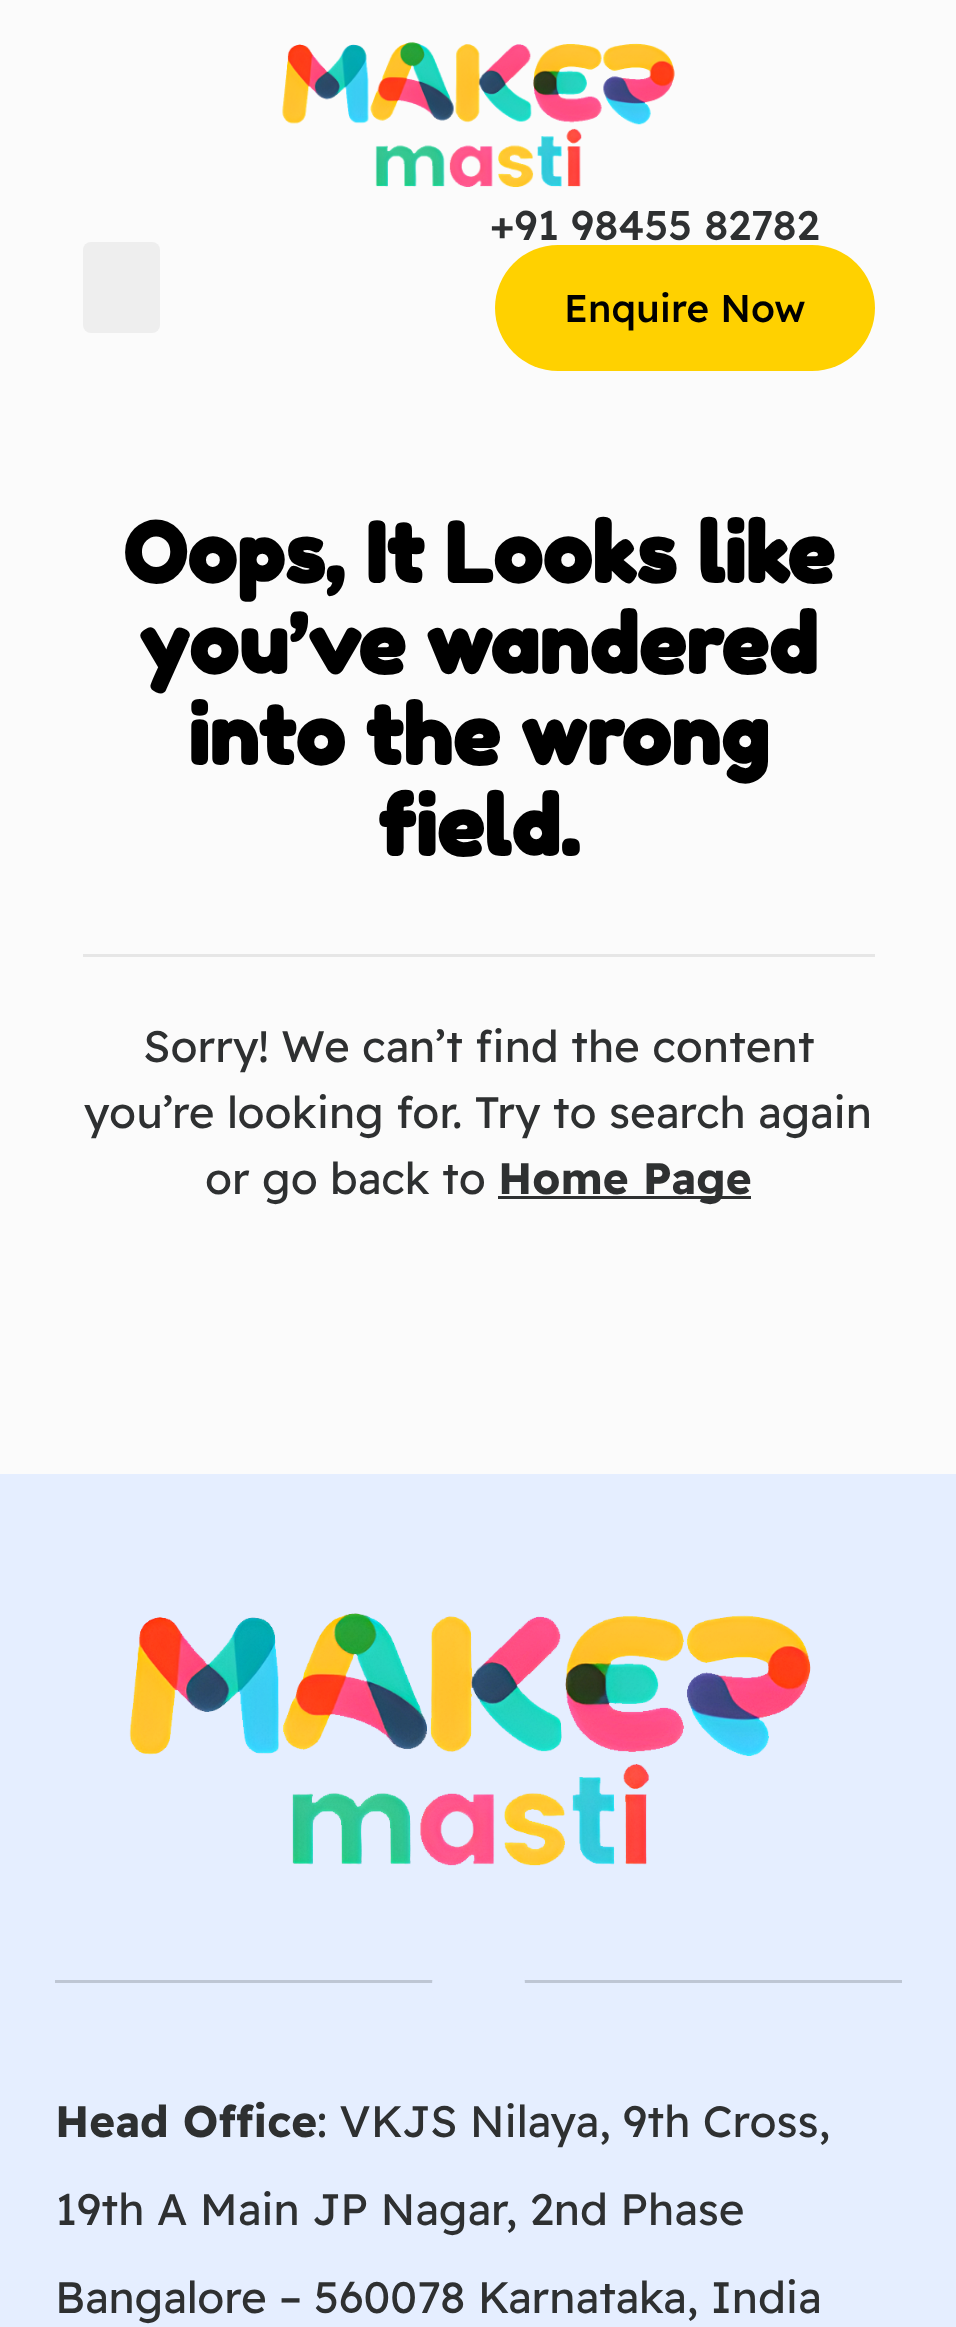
<!DOCTYPE html>
<meta charset="utf-8">
<style>body { margin: 0 } canvas { display: block }</style>
<canvas id="canvas" width="956" height="2327"></canvas>
<img id="img1" src="images/1.png" hidden>
<img id="img2" src="images/2.png" hidden>
<script>
window.onload = function () {
    const canvas = document.getElementById('canvas');
    const context = canvas.getContext('2d');
    context.miterLimit = 4;
    context.fontKerning = 'normal';

    context.fillStyle = 'rgb(251, 251, 251)';
    context.fillRect(0, 0, 956, 2327);
    context.drawImage(document.getElementById('img1'), 282, 42, 393, 145);
    context.fillStyle = 'rgb(238, 238, 238)';
    context.beginPath();
    context.roundRect(83, 242, 77, 91, 8);
    context.fill();
    context.fillStyle = 'rgb(255, 209, 0)';
    context.beginPath();
    context.roundRect(495, 245, 380, 126, 63);
    context.fill();
    context.fillStyle = 'rgb(230, 230, 230)';
    context.fillRect(83, 954, 792, 3);
    context.fillStyle = 'rgb(46, 48, 49)';
    context.fillRect(498, 1196, 253, 3);
    context.fillStyle = 'rgb(229, 238, 255)';
    context.fillRect(0, 1474, 956, 853);
    context.drawImage(document.getElementById('img2'), 129, 1613, 682, 253);
    context.fillStyle = 'rgb(190, 198, 212)';
    context.fillRect(55, 1980, 847, 3);
    context.fillStyle = 'rgb(229, 238, 255)';
    context.beginPath();
    context.arc(478.5, 1985.5, 46.5, 0, 2 * Math.PI);
    context.fill();
    context.font = '500 41.25px Readex Pro';
    context.fillStyle = 'rgb(46, 48, 49)';
    context.fillText('+91 98455 82782', 490, 240);
    context.font = '500 38.5px Readex Pro';
    context.fillStyle = 'rgb(0, 0, 0)';
    context.fillText('Enquire Now', 564, 322);
    context.font = 'bold 82.5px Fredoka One';
    context.fillText('Oops, It Looks like', 123, 583);
    context.fillText('you’ve wandered', 139, 674);
    context.fillText('into the wrong', 188, 765);
    context.fillText('field.', 378, 856);
    context.font = '44px Readex Pro';
    context.fillStyle = 'rgb(46, 48, 49)';
    context.fillText('Sorry! We can’t find the content', 143, 1062);
    context.fillText('you’re looking for. Try to search again', 84, 1128);
    context.fillText('or go back to', 205, 1194);
    context.font = 'bold 44px Readex Pro';
    context.fillText('Home Page', 498, 1194);
    context.fillText('Head Office', 55, 2137);
    context.font = '44px Readex Pro';
    context.fillText(': VKJS Nilaya, 9th Cross,', 317, 2137);
    context.fillText('19th A Main JP Nagar, 2nd Phase', 55, 2225);
    context.fillText('Bangalore – 560078 Karnataka, India', 55, 2313);
};
</script>
